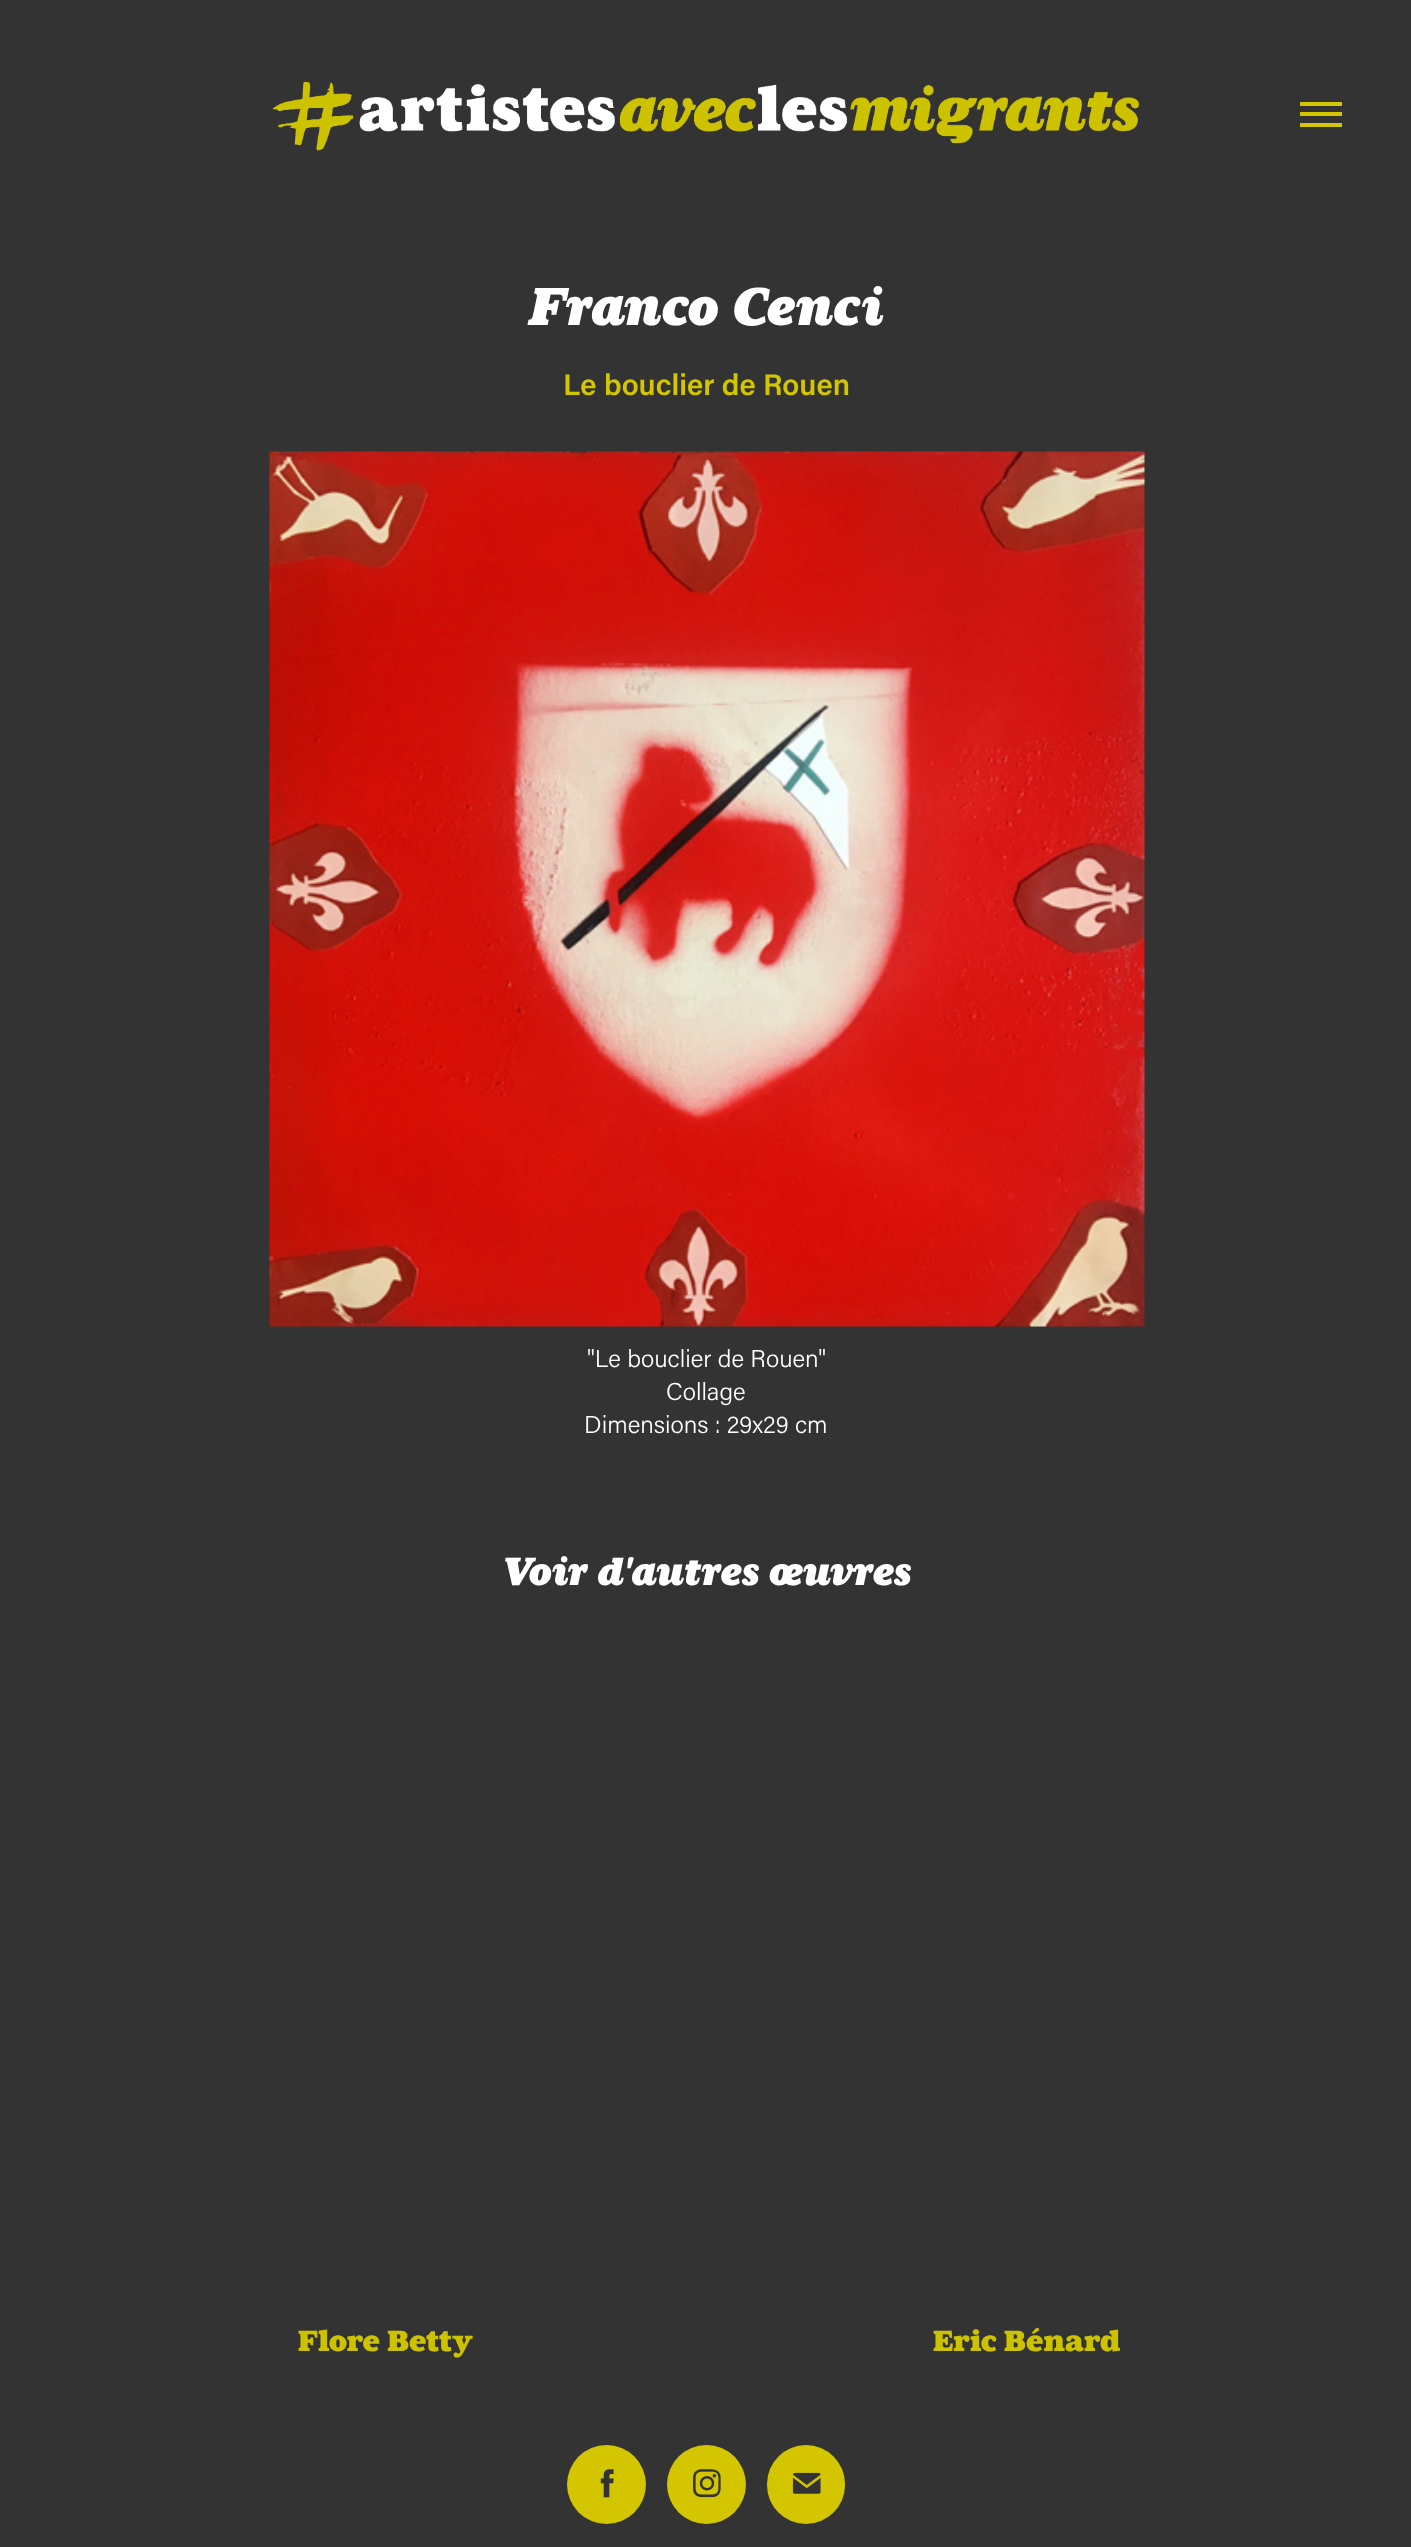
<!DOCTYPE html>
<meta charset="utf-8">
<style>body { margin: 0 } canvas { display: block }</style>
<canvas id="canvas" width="1411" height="2547"></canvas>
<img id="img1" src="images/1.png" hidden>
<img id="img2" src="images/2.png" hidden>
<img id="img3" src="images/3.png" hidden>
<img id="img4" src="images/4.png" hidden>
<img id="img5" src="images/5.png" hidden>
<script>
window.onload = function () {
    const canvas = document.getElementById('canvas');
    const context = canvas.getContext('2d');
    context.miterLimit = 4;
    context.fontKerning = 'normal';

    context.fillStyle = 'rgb(51, 51, 51)';
    context.fillRect(0, 0, 1411, 2547);
    context.drawImage(document.getElementById('img1'), 272, 81, 867, 70);
    context.fillStyle = 'rgb(211, 198, 0)';
    context.fillRect(1300, 102, 42, 4);
    context.fillRect(1300, 112, 42, 4);
    context.fillRect(1300, 123, 42, 4);
    context.drawImage(document.getElementById('img2'), 269, 451, 876, 876);
    context.beginPath();
    context.arc(606.5, 2484.5, 39.5, 0, 2 * Math.PI);
    context.fill();
    context.drawImage(document.getElementById('img3'), 600, 2469, 14, 29);
    context.beginPath();
    context.arc(706.5, 2484.5, 39.5, 0, 2 * Math.PI);
    context.fill();
    context.drawImage(document.getElementById('img4'), 693, 2469, 28, 29);
    context.beginPath();
    context.roundRect(767, 2445, 78, 79, 39);
    context.fill();
    context.drawImage(document.getElementById('img5'), 792, 2472, 29, 22);
    context.font = 'italic 500 54.25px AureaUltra';
    context.fillStyle = 'rgb(255, 255, 255)';
    context.fillText('Franco Cenci', 528, 325);
    context.font = '600 29.75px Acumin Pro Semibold';
    context.fillStyle = 'rgb(211, 198, 0)';
    context.fillText('Le bouclier de Rouen', 563, 395);
    context.font = '300 24.5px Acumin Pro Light';
    context.fillStyle = 'rgb(255, 255, 255)';
    context.fillText('"Le bouclier de Rouen"', 587, 1367);
    context.fillText('Collage', 666, 1400);
    context.fillText('Dimensions : 29x29 cm', 584, 1433);
    context.font = 'italic 500 40.25px AureaUltra';
    context.fillText('Voir d\'autres œuvres', 501, 1585);
    context.font = '29.75px AureaUltra';
    context.fillStyle = 'rgb(204, 194, 0)';
    context.fillText('Flore Betty', 298, 2351);
    context.fillText('Eric Bénard', 933, 2351);
};
</script>
